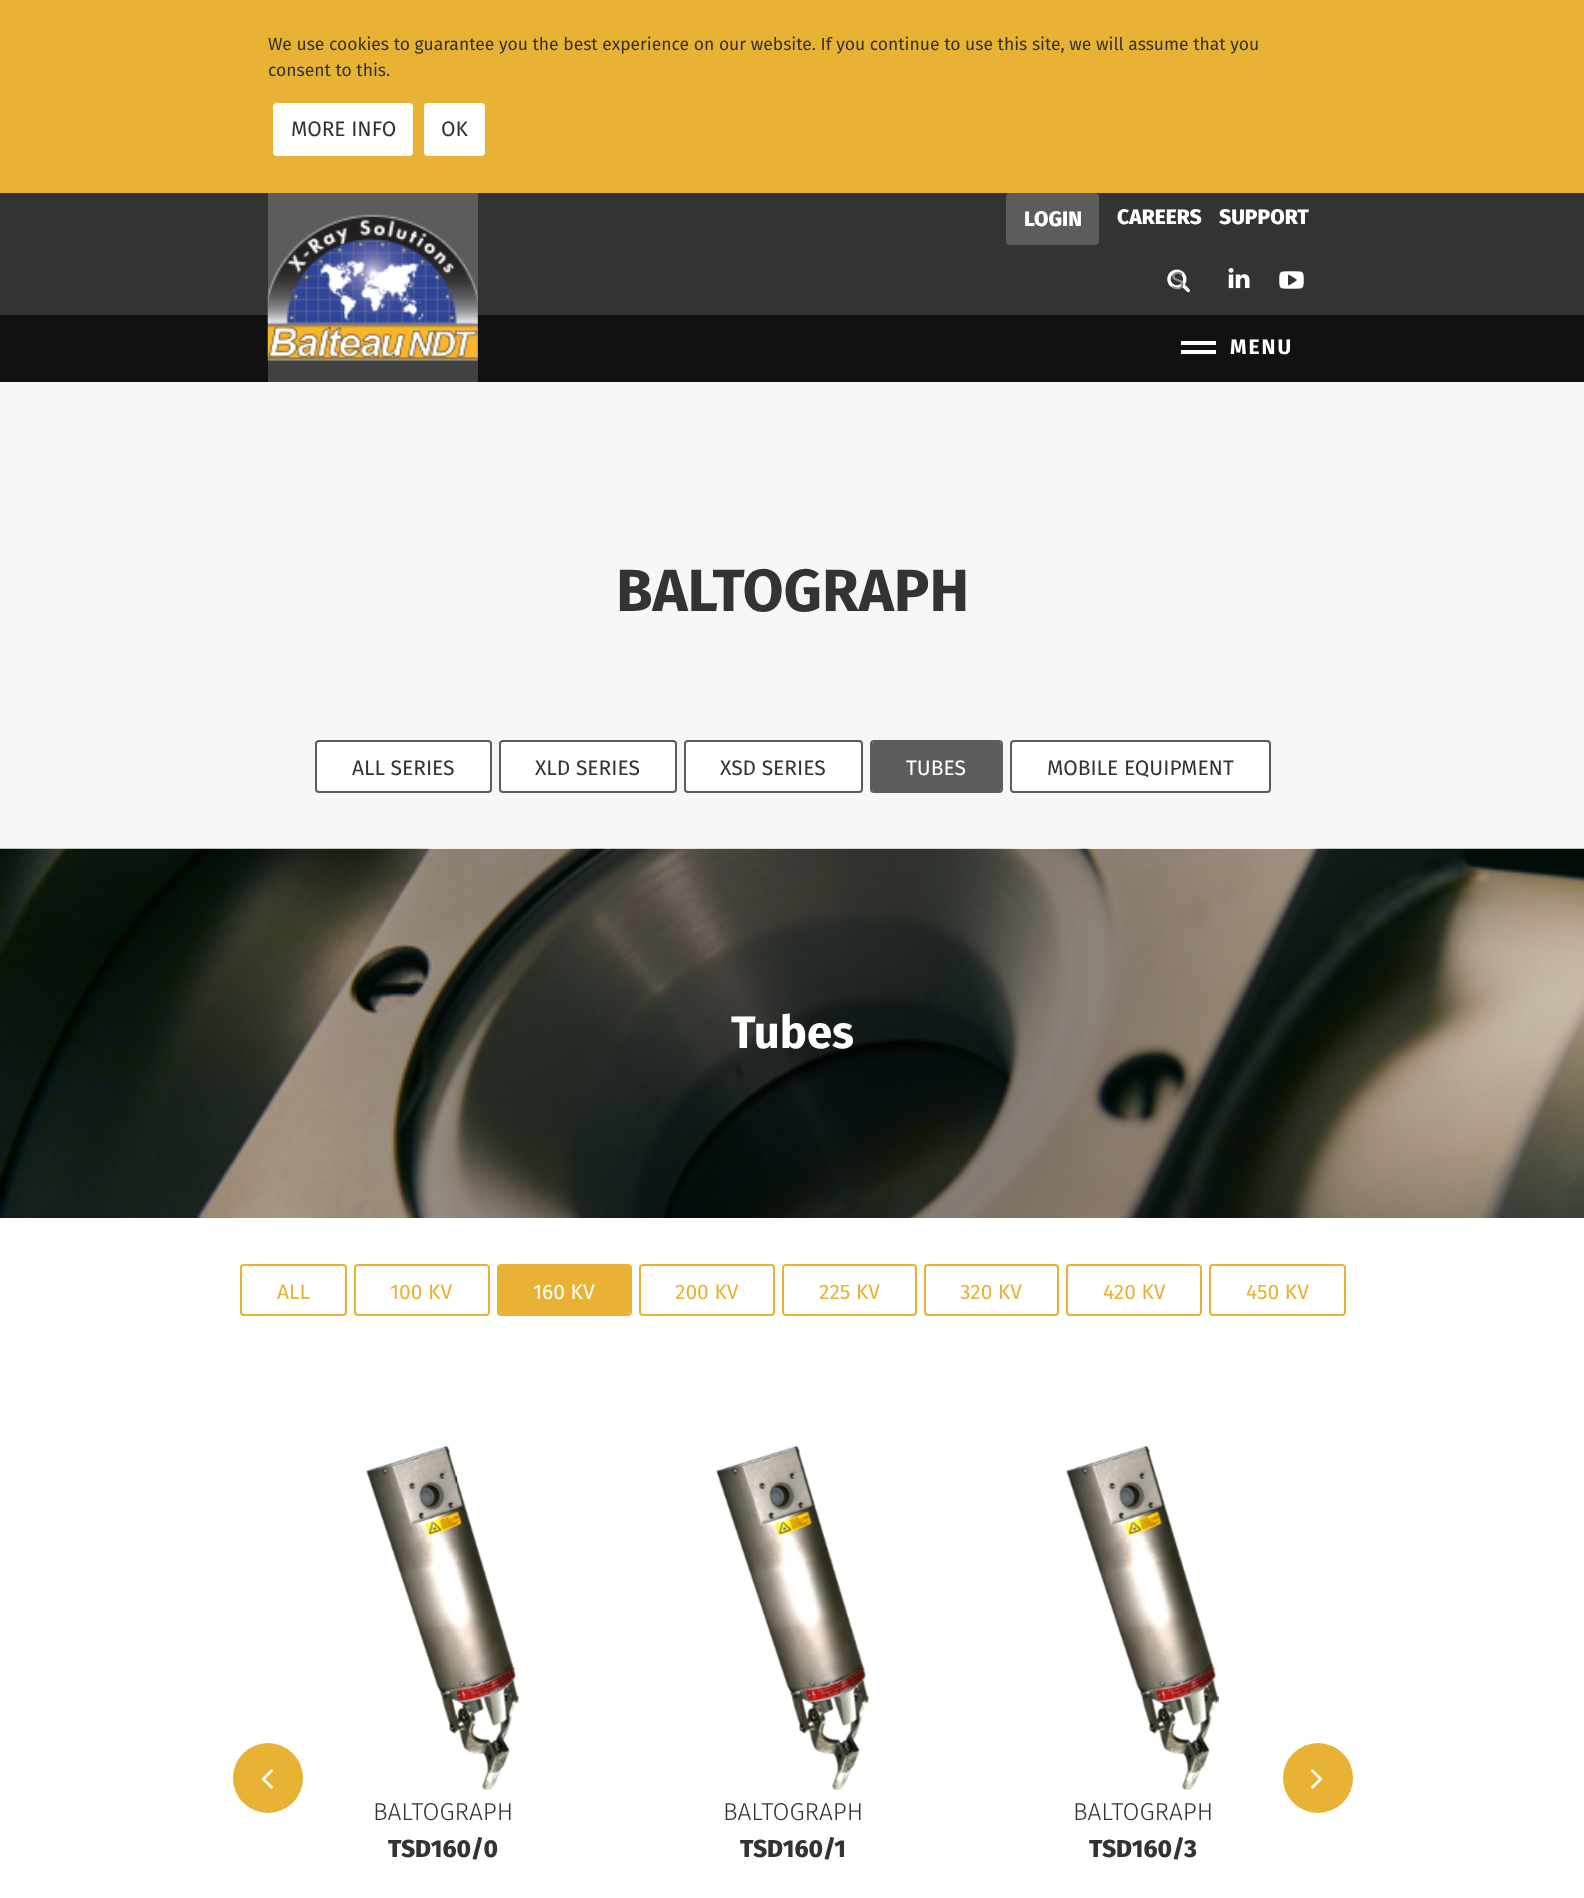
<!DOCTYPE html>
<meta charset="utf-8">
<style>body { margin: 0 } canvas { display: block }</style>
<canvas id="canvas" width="1584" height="1898"></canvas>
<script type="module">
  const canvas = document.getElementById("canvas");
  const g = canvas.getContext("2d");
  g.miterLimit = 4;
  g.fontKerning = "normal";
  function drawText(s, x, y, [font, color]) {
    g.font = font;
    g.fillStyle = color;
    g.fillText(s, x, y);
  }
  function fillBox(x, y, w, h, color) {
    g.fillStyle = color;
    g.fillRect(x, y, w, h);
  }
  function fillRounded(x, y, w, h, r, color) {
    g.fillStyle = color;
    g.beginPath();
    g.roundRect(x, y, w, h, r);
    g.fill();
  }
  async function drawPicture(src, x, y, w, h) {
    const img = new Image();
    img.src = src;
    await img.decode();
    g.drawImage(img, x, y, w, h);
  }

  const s1 = ["17.5px Fira Sans", "#333333"];
  const s2 = ["21px Fira Sans", "#333333"];
  const s3 = ["800 21px Fira Sans", "#FFFFFF"];
  const s4 = ["24.5px Fira Sans", "#929292"];
  const s5 = ["bold 21px Fira Sans", "#FFFFFF"];
  const s6 = ["bold 59.5px Fira Sans", "#333333"];
  const s7 = ["21px Fira Sans", "#FFFFFF"];
  const s8 = ["bold 45.5px Fira Sans", "#FFFFFF"];
  const s9 = ["21px Fira Sans", "#E8B234"];
  const s10 = ["300 24.5px Fira Sans", "#333333"];
  const s11 = ["800 24.5px Fira Sans", "#333333"];

  fillBox(0, 0, 1584, 1898, "#333333");
  fillBox(268, 193, 210, 122, "#5C5C5C");
  fillBox(0, 0, 1584, 193, "#E8B234");
  drawText("We use cookies to guarantee you the best experience on our website. If you continue to use this site, we will assume that you", 268, 50, s1);
  drawText("consent to this.", 268, 76, s1);
  fillRounded(273, 103, 140, 53, 4, "#FFFFFF");
  drawText("MORE INFO", 291, 136, s2);
  fillRounded(424, 103, 61, 53, 4, "#FFFFFF");
  drawText("OK", 441, 136, s2);
  fillBox(0, 315, 1584, 67, "#111111");
  fillBox(268, 315, 210, 67, "#414141");
  await drawPicture("pic1.png", 267, 214, 211, 147);
  fillRounded(1006, 193, 93, 52, 4, "#5C5C5C");
  drawText("LOGIN", 1024, 226, s3);
  drawText("CAREERS", 1117, 224, s3);
  drawText("SUPPORT", 1219, 224, s3);
  await drawPicture("pic2.png", 1167, 269, 23, 24);
  drawText("S", 1171, 289, s4);
  await drawPicture("pic3.png", 1228, 268, 22, 21);
  await drawPicture("pic4.png", 1279, 271, 25, 18);
  fillBox(1181, 341, 35, 4, "#FFFFFF");
  fillBox(1181, 350, 35, 4, "#FFFFFF");
  g.letterSpacing = "2px";
  drawText("MENU", 1230, 354, s5);
  fillBox(0, 382, 1584, 467, "#F8F7F7");
  g.letterSpacing = "0px";
  drawText("BALTOGRAPH", 616, 611, s6);
  g.fillStyle = "#FFFFFF";
  g.beginPath();
  g.roundRect(316, 741, 175, 51, 3);
  g.fill();
  g.strokeStyle = "#5C5C5C";
  g.lineWidth = 2;
  g.stroke();
  drawText("ALL SERIES", 352, 775, s2);
  g.fillStyle = "#FFFFFF";
  g.beginPath();
  g.roundRect(500, 741, 176, 51, 3);
  g.fill();
  g.stroke();
  drawText("XLD SERIES", 535, 775, s2);
  g.fillStyle = "#FFFFFF";
  g.beginPath();
  g.roundRect(685, 741, 177, 51, 3);
  g.fill();
  g.stroke();
  drawText("XSD SERIES", 720, 775, s2);
  g.beginPath();
  g.roundRect(871, 741, 131, 51, 3);
  g.stroke();
  fillRounded(872, 742, 129, 49, 2, "#5C5C5C");
  drawText("TUBES", 906, 775, s7);
  g.beginPath();
  g.roundRect(1011, 741, 259, 51, 3);
  g.fill();
  g.stroke();
  drawText("MOBILE EQUIPMENT", 1047, 775, s2);
  await drawPicture("pic5.png", 0, 848, 1584, 370);
  drawText("Tubes", 731, 1048, s8);
  fillBox(0, 1218, 1584, 680, "#FFFFFF");
  g.beginPath();
  g.roundRect(241, 1265, 105, 50, 3);
  g.strokeStyle = "#E8B234";
  g.stroke();
  drawText("ALL", 277, 1299, s9);
  g.beginPath();
  g.roundRect(355, 1265, 134, 50, 3);
  g.stroke();
  drawText("100 KV", 390, 1299, s9);
  g.beginPath();
  g.roundRect(498, 1265, 133, 50, 3);
  g.stroke();
  fillRounded(499, 1265, 131, 49, 2, "#E8B234");
  drawText("160 KV", 533, 1299, s7);
  g.beginPath();
  g.roundRect(640, 1265, 134, 50, 3);
  g.stroke();
  drawText("200 KV", 675, 1299, s9);
  g.beginPath();
  g.roundRect(783, 1265, 133, 50, 3);
  g.stroke();
  drawText("225 KV", 819, 1299, s9);
  g.beginPath();
  g.roundRect(925, 1265, 133, 50, 3);
  g.stroke();
  drawText("320 KV", 960, 1299, s9);
  g.beginPath();
  g.roundRect(1067, 1265, 134, 50, 3);
  g.stroke();
  drawText("420 KV", 1103, 1299, s9);
  g.beginPath();
  g.roundRect(1210, 1265, 135, 50, 3);
  g.stroke();
  drawText("450 KV", 1246, 1299, s9);
  g.beginPath();
  g.arc(268, 1778, 35, 0, Math.PI * 2);
  g.fill();
  await drawPicture("pic6.png", 261, 1769, 12, 20);
  g.beginPath();
  g.arc(1318, 1778, 35, 0, Math.PI * 2);
  g.fill();
  await drawPicture("pic7.png", 1311, 1769, 12, 20);
  await drawPicture("pic8.png", 366, 1445, 153, 345);
  drawText("BALTOGRAPH", 373, 1820, s10);
  drawText("TSD160/0", 388, 1857, s11);
  await drawPicture("pic9.png", 716, 1445, 153, 345);
  drawText("BALTOGRAPH", 723, 1820, s10);
  drawText("TSD160/1", 740, 1857, s11);
  await drawPicture("pic10.png", 1066, 1445, 153, 345);
  drawText("BALTOGRAPH", 1073, 1820, s10);
  drawText("TSD160/3", 1089, 1857, s11);
</script>
